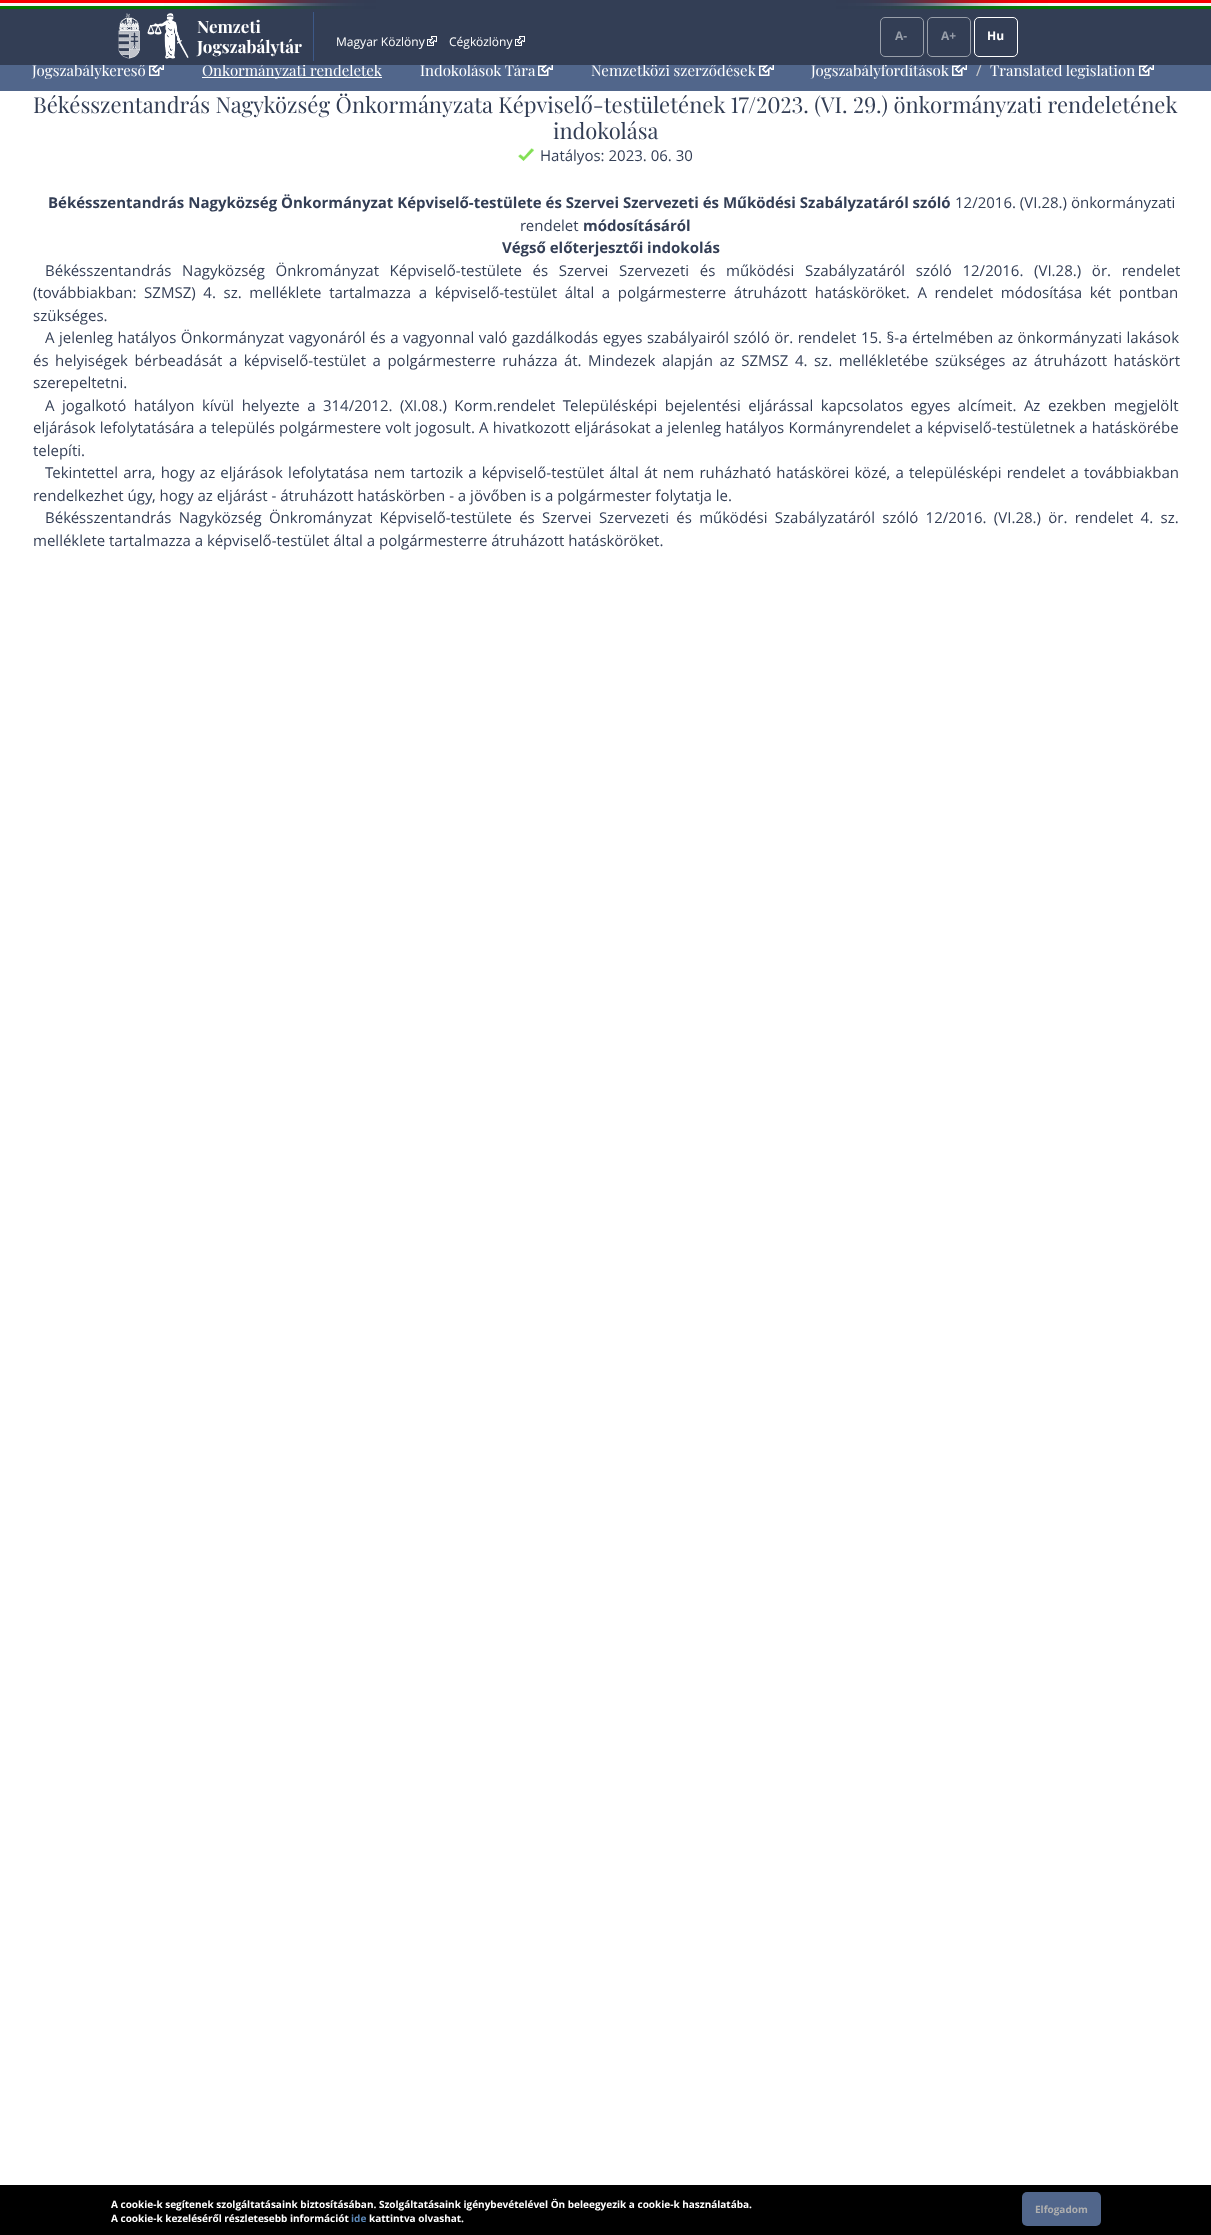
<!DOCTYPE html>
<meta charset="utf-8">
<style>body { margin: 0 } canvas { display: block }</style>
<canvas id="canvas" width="1211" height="2235"></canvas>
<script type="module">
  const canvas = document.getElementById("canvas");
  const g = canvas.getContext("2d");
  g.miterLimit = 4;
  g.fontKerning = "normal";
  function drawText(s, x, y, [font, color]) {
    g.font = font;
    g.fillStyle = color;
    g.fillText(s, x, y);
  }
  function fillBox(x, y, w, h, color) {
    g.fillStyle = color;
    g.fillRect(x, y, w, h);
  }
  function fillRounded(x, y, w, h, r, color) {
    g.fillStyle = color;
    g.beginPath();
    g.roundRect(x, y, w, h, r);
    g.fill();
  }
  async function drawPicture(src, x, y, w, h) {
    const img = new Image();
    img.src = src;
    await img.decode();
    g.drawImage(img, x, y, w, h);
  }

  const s1 = ["15px Playfair Display", "#FFFFFF"];
  const s2 = ["bold 17px Playfair Display", "#FFFFFF"];
  const s3 = ["12px Open Sans", "#FFFFFF"];
  const s4 = ["bold 12px Open Sans", "#999FAA"];
  const s5 = ["bold 12px Open Sans", "#FFFFFF"];
  const s6 = ["15px Open Sans", "#CCCCCC"];
  const s7 = ["22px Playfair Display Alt", "#333E55"];
  const s8 = ["22px Playfair Display", "#333E55"];
  const s9 = ["15px Open Sans", "#333E55"];
  const s10 = ["bold 15px Open Sans", "#333E55"];
  const s11 = ["bold 10px Open Sans", "#FFFFFF"];
  const s12 = ["bold 10px Open Sans", "#5D89B8"];
  const s13 = ["bold 10px Open Sans", "#AFAFAF"];

  fillBox(0, 0, 1211, 2235, "#FFFFFF");
  fillBox(0, 65, 1211, 26, "#51668B");
  drawText("Jogszabálykereső", 32, 76, s1);
  fillBox(202, 77, 180, 1, "#FFFFFF");
  drawText("Önkormányzati rendeletek", 202, 76, s1);
  drawText("Indokolások Tára", 420, 76, s1);
  drawText("Nemzetközi szerződések", 591, 76, s1);
  drawText("Jogszabályfordítások", 811, 76, s1);
  drawText("Translated legislation", 990, 76, s1);
  fillBox(0, 9, 1211, 56, "#333E55");
  await drawPicture("pic1.png", 0, 0, 1211, 9);
  fillBox(111, 0, 990, 9, "#333E55");
  await drawPicture("pic2.png", 111, 0, 990, 9);
  await drawPicture("pic3.png", 118, 13, 71, 46);
  fillBox(313, 12, 1, 49, "#3D5988");
  drawText("Nemzeti", 197, 33, s2);
  drawText("Jogszabálytár", 197, 53, s2);
  drawText("Magyar Közlöny", 336, 46, s3);
  await drawPicture("pic4.png", 427, 36, 10, 10);
  drawText("Cégközlöny", 449, 46, s3);
  await drawPicture("pic4.png", 515, 36, 10, 10);
  g.beginPath();
  g.roundRect(880.5, 17.5, 43, 39, 4.5);
  g.strokeStyle = "#999FAA";
  g.stroke();
  drawText("A-", 895, 40, s4);
  g.beginPath();
  g.roundRect(927.5, 17.5, 43, 39, 4.5);
  g.stroke();
  drawText("A+", 941, 40, s4);
  g.beginPath();
  g.roundRect(974.5, 17.5, 43, 39, 4.5);
  g.strokeStyle = "#FFFFFF";
  g.stroke();
  drawText("Hu", 987, 40, s5);
  await drawPicture("pic5.png", 149, 65, 15, 11);
  await drawPicture("pic5.png", 538, 65, 15, 11);
  await drawPicture("pic6.png", 759, 65, 15, 11);
  await drawPicture("pic7.png", 952, 65, 15, 11);
  drawText("/", 976, 76, s6);
  await drawPicture("pic5.png", 1139, 65, 15, 11);
  drawText("Békésszentandrás Nagyközség Önkormányzata Képviselő-testületének 17/2023. (VI. 29.) önkormányzati rendeletének", 33, 113, s7);
  drawText("indokolása", 553, 139, s8);
  await drawPicture("pic8.png", 518, 148, 16, 13);
  drawText("Hatályos: 2023. 06. 30", 540, 161, s9);
  drawText("Békésszentandrás Nagyközség Önkormányzat Képviselő-testülete és Szervei Szervezeti és Működési Szabályzatáról szóló", 48, 208, s10);
  drawText("12/2016. (VI.28.) önkormányzati", 955, 208, s9);
  drawText("rendelet", 520, 231, s9);
  drawText("módosításáról", 583, 231, s10);
  drawText("Végső előterjesztői indokolás", 502, 253, s10);
  g.wordSpacing = "6.75px";
  drawText("Békésszentandrás Nagyközség Önkrományzat Képviselő-testülete és Szervei Szervezeti és működési Szabályzatáról szóló 12/2016. (VI.28.) ör. rendelet", 45, 276, s9);
  g.wordSpacing = "3.75px";
  drawText("(továbbiakban: SZMSZ) 4. sz. melléklete tartalmazza a képviselő-testület által a polgármesterre átruházott hatásköröket. A rendelet módosítása két pontban", 33, 298, s9);
  g.wordSpacing = "0px";
  drawText("szükséges.", 33, 321, s9);
  g.wordSpacing = "0.6px";
  drawText("A jelenleg hatályos Önkormányzat vagyonáról és a vagyonnal való gazdálkodás egyes szabályairól szóló ör. rendelet 15. §-a értelmében az önkormányzati lakások", 45, 343, s9);
  g.wordSpacing = "2.6px";
  drawText("és helyiségek bérbeadását a képviselő-testület a polgármesterre ruházza át. Mindezek alapján az SZMSZ 4. sz. mellékletébe szükséges az átruházott hatáskört", 33, 366, s9);
  g.wordSpacing = "0px";
  drawText("szerepeltetni.", 33, 388, s9);
  g.wordSpacing = "3.6px";
  drawText("A jogalkotó hatályon kívül helyezte a 314/2012. (XI.08.) Korm.rendelet Településképi bejelentési eljárással kapcsolatos egyes alcímeit. Az ezekben megjelölt", 45, 411, s9);
  g.wordSpacing = "0.3px";
  drawText("eljárások lefolytatására a település polgármestere volt jogosult. A hivatkozott eljárásokat a jelenleg hatályos Kormányrendelet a képviselő-testületnek a hatáskörébe", 33, 433, s9);
  g.wordSpacing = "0px";
  drawText("telepíti.", 33, 456, s9);
  g.wordSpacing = "1.25px";
  drawText("Tekintettel arra, hogy az eljárások lefolytatása nem tartozik a képviselő-testület által át nem ruházható hatáskörei közé, a településképi rendelet a továbbiakban", 45, 478, s9);
  g.wordSpacing = "0px";
  drawText("rendelkezhet úgy, hogy az eljárást - átruházott hatáskörben - a jövőben is a polgármester folytatja le.", 33, 501, s9);
  g.wordSpacing = "3.4px";
  drawText("Békésszentandrás Nagyközség Önkrományzat Képviselő-testülete és Szervei Szervezeti és működési Szabályzatáról szóló 12/2016. (VI.28.) ör. rendelet 4. sz.", 45, 523, s9);
  g.wordSpacing = "0px";
  drawText("melléklete tartalmazza a képviselő-testület által a polgármesterre átruházott hatásköröket.", 33, 546, s9);
  fillBox(0, 2185, 1211, 50, "#000000");
  drawText("A cookie-k segítenek szolgáltatásaink biztosításában. Szolgáltatásaink igénybevételével Ön beleegyezik a cookie-k használatába.", 111, 2208, s11);
  drawText("A cookie-k kezeléséről részletesebb információt", 111, 2222, s11);
  drawText("ide", 351, 2222, s12);
  drawText("kattintva olvashat.", 369, 2222, s11);
  fillRounded(1022, 2192, 79, 34, 5, "#51668B");
  drawText("Elfogadom", 1035, 2213, s13);
</script>
